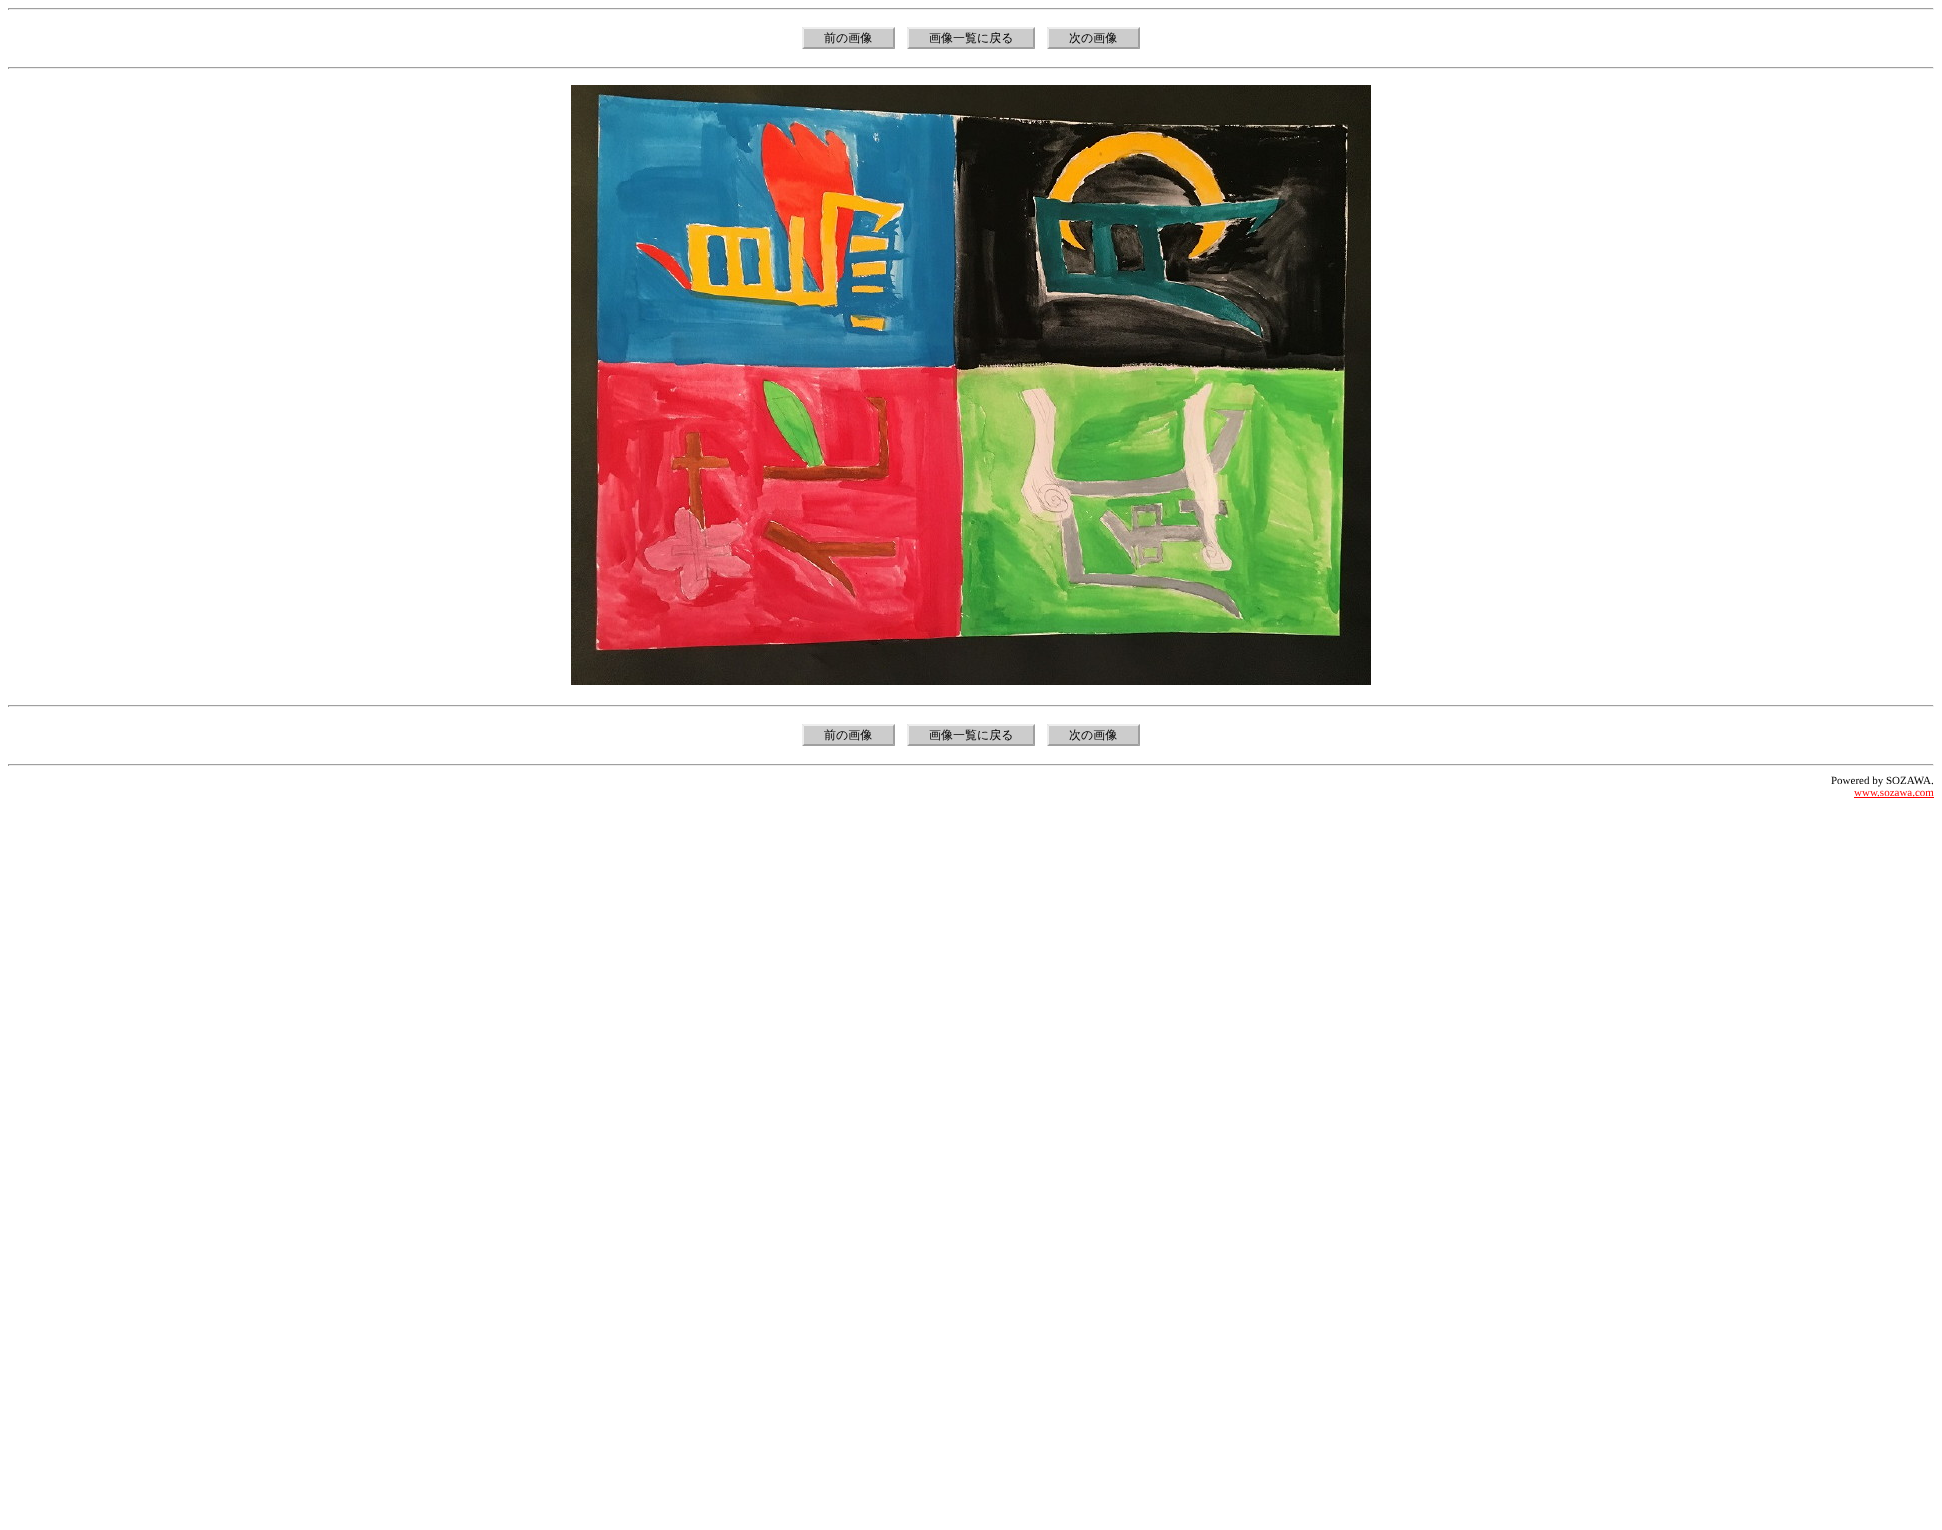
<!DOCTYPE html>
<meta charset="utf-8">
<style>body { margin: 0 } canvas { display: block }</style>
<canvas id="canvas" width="1942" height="1530"></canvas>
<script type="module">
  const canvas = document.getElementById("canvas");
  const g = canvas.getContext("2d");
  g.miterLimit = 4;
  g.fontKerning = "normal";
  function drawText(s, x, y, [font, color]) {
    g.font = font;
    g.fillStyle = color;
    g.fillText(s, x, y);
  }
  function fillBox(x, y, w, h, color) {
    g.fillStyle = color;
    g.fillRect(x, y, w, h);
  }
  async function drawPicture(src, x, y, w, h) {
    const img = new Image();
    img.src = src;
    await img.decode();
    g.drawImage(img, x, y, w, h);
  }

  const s1 = ["500 12px WenQuanYi Zen Hei", "#000000"];
  const s2 = ["11px Liberation Serif", "#000000"];
  const s3 = ["11px Liberation Serif", "#FF0000"];

  fillBox(0, 0, 1942, 1530, "#FFFFFF");
  fillBox(8, 8, 1926, 1, "#9F9F9F");
  fillBox(1933, 8, 1, 2, "#EEEEEE");
  fillBox(8, 9, 1926, 1, "#EEEEEE");
  fillBox(8, 8, 1, 2, "#9F9F9F");
  fillBox(802, 27, 93, 22, "#CCCCCC");
  drawText("前の画像", 824, 42, s1);
  g.fillStyle = "#EEEEEE";
  g.beginPath();
  g.moveTo(802, 27);
  g.lineTo(895, 27);
  g.lineTo(893, 29);
  g.lineTo(804, 29);
  g.closePath();
  g.fill();
  g.fillStyle = "#9F9F9F";
  g.beginPath();
  g.moveTo(895, 27);
  g.lineTo(895, 49);
  g.lineTo(893, 47);
  g.lineTo(893, 29);
  g.closePath();
  g.fill();
  g.beginPath();
  g.moveTo(895, 49);
  g.lineTo(802, 49);
  g.lineTo(804, 47);
  g.lineTo(893, 47);
  g.closePath();
  g.fill();
  g.fillStyle = "#EEEEEE";
  g.beginPath();
  g.moveTo(802, 49);
  g.lineTo(802, 27);
  g.lineTo(804, 29);
  g.lineTo(804, 47);
  g.closePath();
  g.fill();
  fillBox(907, 27, 128, 22, "#CCCCCC");
  drawText("画像一覧に戻る", 929, 42, s1);
  g.fillStyle = "#EEEEEE";
  g.beginPath();
  g.moveTo(907, 27);
  g.lineTo(1035, 27);
  g.lineTo(1033, 29);
  g.lineTo(909, 29);
  g.closePath();
  g.fill();
  g.fillStyle = "#9F9F9F";
  g.beginPath();
  g.moveTo(1035, 27);
  g.lineTo(1035, 49);
  g.lineTo(1033, 47);
  g.lineTo(1033, 29);
  g.closePath();
  g.fill();
  g.beginPath();
  g.moveTo(1035, 49);
  g.lineTo(907, 49);
  g.lineTo(909, 47);
  g.lineTo(1033, 47);
  g.closePath();
  g.fill();
  g.fillStyle = "#EEEEEE";
  g.beginPath();
  g.moveTo(907, 49);
  g.lineTo(907, 27);
  g.lineTo(909, 29);
  g.lineTo(909, 47);
  g.closePath();
  g.fill();
  fillBox(1047, 27, 93, 22, "#CCCCCC");
  drawText("次の画像", 1069, 42, s1);
  g.fillStyle = "#EEEEEE";
  g.beginPath();
  g.moveTo(1047, 27);
  g.lineTo(1140, 27);
  g.lineTo(1138, 29);
  g.lineTo(1049, 29);
  g.closePath();
  g.fill();
  g.fillStyle = "#9F9F9F";
  g.beginPath();
  g.moveTo(1140, 27);
  g.lineTo(1140, 49);
  g.lineTo(1138, 47);
  g.lineTo(1138, 29);
  g.closePath();
  g.fill();
  g.beginPath();
  g.moveTo(1140, 49);
  g.lineTo(1047, 49);
  g.lineTo(1049, 47);
  g.lineTo(1138, 47);
  g.closePath();
  g.fill();
  g.fillStyle = "#EEEEEE";
  g.beginPath();
  g.moveTo(1047, 49);
  g.lineTo(1047, 27);
  g.lineTo(1049, 29);
  g.lineTo(1049, 47);
  g.closePath();
  g.fill();
  fillBox(8, 67, 1926, 1, "#9F9F9F");
  fillBox(1933, 67, 1, 2, "#EEEEEE");
  fillBox(8, 68, 1926, 1, "#EEEEEE");
  fillBox(8, 67, 1, 2, "#9F9F9F");
  await drawPicture("pic1.png", 571, 85, 800, 600);
  fillBox(8, 705, 1926, 1, "#9F9F9F");
  fillBox(1933, 705, 1, 2, "#EEEEEE");
  fillBox(8, 706, 1926, 1, "#EEEEEE");
  fillBox(8, 705, 1, 2, "#9F9F9F");
  fillBox(802, 724, 93, 22, "#CCCCCC");
  drawText("前の画像", 824, 739, s1);
  g.fillStyle = "#EEEEEE";
  g.beginPath();
  g.moveTo(802, 724);
  g.lineTo(895, 724);
  g.lineTo(893, 726);
  g.lineTo(804, 726);
  g.closePath();
  g.fill();
  g.fillStyle = "#9F9F9F";
  g.beginPath();
  g.moveTo(895, 724);
  g.lineTo(895, 746);
  g.lineTo(893, 744);
  g.lineTo(893, 726);
  g.closePath();
  g.fill();
  g.beginPath();
  g.moveTo(895, 746);
  g.lineTo(802, 746);
  g.lineTo(804, 744);
  g.lineTo(893, 744);
  g.closePath();
  g.fill();
  g.fillStyle = "#EEEEEE";
  g.beginPath();
  g.moveTo(802, 746);
  g.lineTo(802, 724);
  g.lineTo(804, 726);
  g.lineTo(804, 744);
  g.closePath();
  g.fill();
  fillBox(907, 724, 128, 22, "#CCCCCC");
  drawText("画像一覧に戻る", 929, 739, s1);
  g.fillStyle = "#EEEEEE";
  g.beginPath();
  g.moveTo(907, 724);
  g.lineTo(1035, 724);
  g.lineTo(1033, 726);
  g.lineTo(909, 726);
  g.closePath();
  g.fill();
  g.fillStyle = "#9F9F9F";
  g.beginPath();
  g.moveTo(1035, 724);
  g.lineTo(1035, 746);
  g.lineTo(1033, 744);
  g.lineTo(1033, 726);
  g.closePath();
  g.fill();
  g.beginPath();
  g.moveTo(1035, 746);
  g.lineTo(907, 746);
  g.lineTo(909, 744);
  g.lineTo(1033, 744);
  g.closePath();
  g.fill();
  g.fillStyle = "#EEEEEE";
  g.beginPath();
  g.moveTo(907, 746);
  g.lineTo(907, 724);
  g.lineTo(909, 726);
  g.lineTo(909, 744);
  g.closePath();
  g.fill();
  fillBox(1047, 724, 93, 22, "#CCCCCC");
  drawText("次の画像", 1069, 739, s1);
  g.fillStyle = "#EEEEEE";
  g.beginPath();
  g.moveTo(1047, 724);
  g.lineTo(1140, 724);
  g.lineTo(1138, 726);
  g.lineTo(1049, 726);
  g.closePath();
  g.fill();
  g.fillStyle = "#9F9F9F";
  g.beginPath();
  g.moveTo(1140, 724);
  g.lineTo(1140, 746);
  g.lineTo(1138, 744);
  g.lineTo(1138, 726);
  g.closePath();
  g.fill();
  g.beginPath();
  g.moveTo(1140, 746);
  g.lineTo(1047, 746);
  g.lineTo(1049, 744);
  g.lineTo(1138, 744);
  g.closePath();
  g.fill();
  g.fillStyle = "#EEEEEE";
  g.beginPath();
  g.moveTo(1047, 746);
  g.lineTo(1047, 724);
  g.lineTo(1049, 726);
  g.lineTo(1049, 744);
  g.closePath();
  g.fill();
  fillBox(8, 764, 1926, 1, "#9F9F9F");
  fillBox(1933, 764, 1, 2, "#EEEEEE");
  fillBox(8, 765, 1926, 1, "#EEEEEE");
  fillBox(8, 764, 1, 2, "#9F9F9F");
  drawText("Powered by SOZAWA.", 1831, 784, s2);
  drawText("www.sozawa.com", 1854, 796, s3);
  fillBox(1854, 797, 80, 1, "#FF0000");
</script>
